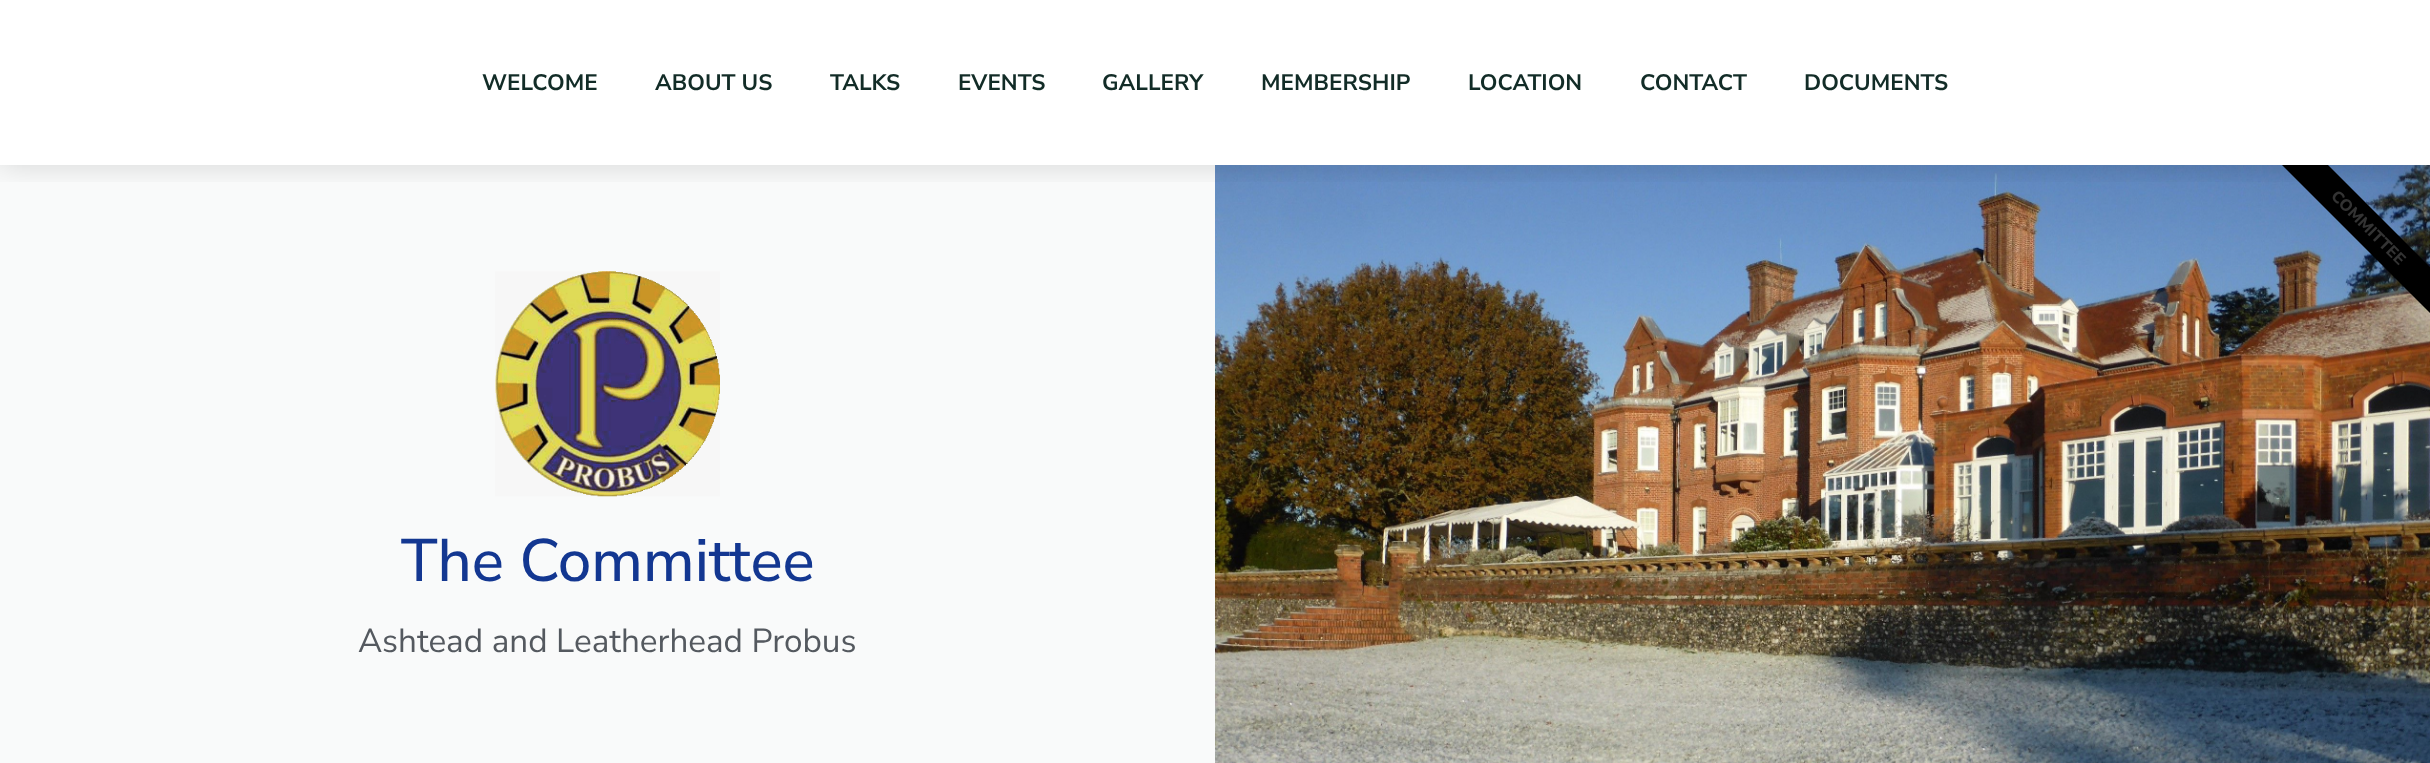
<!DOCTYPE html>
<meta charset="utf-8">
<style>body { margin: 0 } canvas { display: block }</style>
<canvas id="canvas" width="2430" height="763"></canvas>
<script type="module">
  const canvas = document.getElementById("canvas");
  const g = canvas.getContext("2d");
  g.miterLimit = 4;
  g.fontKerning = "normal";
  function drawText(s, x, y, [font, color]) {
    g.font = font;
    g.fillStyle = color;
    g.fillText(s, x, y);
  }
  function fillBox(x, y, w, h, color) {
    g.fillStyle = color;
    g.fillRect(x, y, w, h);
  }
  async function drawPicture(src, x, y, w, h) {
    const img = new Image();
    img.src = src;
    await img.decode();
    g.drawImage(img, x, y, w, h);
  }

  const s1 = ["bold 22.5px Nunito Sans", "#122C27"];
  const s2 = ["500 60px Nunito Sans", "#133791"];
  const s3 = ["33.25px Nunito Sans", "#54595F"];

  fillBox(0, 0, 2430, 763, "#FFFFFF");
  await drawPicture("pic1.png", 1215, 165, 1215, 598);
  g.fillStyle = "#000000";
  g.beginPath();
  g.moveTo(2430, 313);
  g.lineTo(2282, 165);
  g.lineTo(2328, 165);
  g.lineTo(2430, 267);
  g.closePath();
  g.fill();
  fillBox(0, 165, 1215, 598, "#F9FAFA");
  g.save();
  g.beginPath();
  g.rect(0, 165, 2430, 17);
  g.clip();
  g.fillStyle = "rgba(0, 0, 0, 0.15)";
  g.filter = "blur(15px)";
  g.beginPath();
  g.rect(0, 0, 2430, 165);
  g.fill();
  g.filter = "none";
  g.restore();
  drawText("WELCOME", 482, 90, s1);
  drawText("ABOUT US", 655, 90, s1);
  drawText("TALKS", 830, 90, s1);
  drawText("EVENTS", 958, 90, s1);
  drawText("GALLERY", 1102, 90, s1);
  drawText("MEMBERSHIP", 1261, 90, s1);
  drawText("LOCATION", 1468, 90, s1);
  drawText("CONTACT", 1640, 90, s1);
  drawText("DOCUMENTS", 1804, 90, s1);
  g.font = "800 16.25px Nunito Sans";
  g.fillStyle = "#333333";
  g.save();
  g.translate(2330, 197);
  g.rotate(45 * Math.PI / 180);
  g.fillText("COMMITTEE", 0, 0);
  g.restore();
  await drawPicture("pic2.png", 495, 271, 225, 226);
  drawText("The Committee", 401, 581, s2);
  drawText("Ashtead and Leatherhead Probus", 358, 652, s3);
</script>
